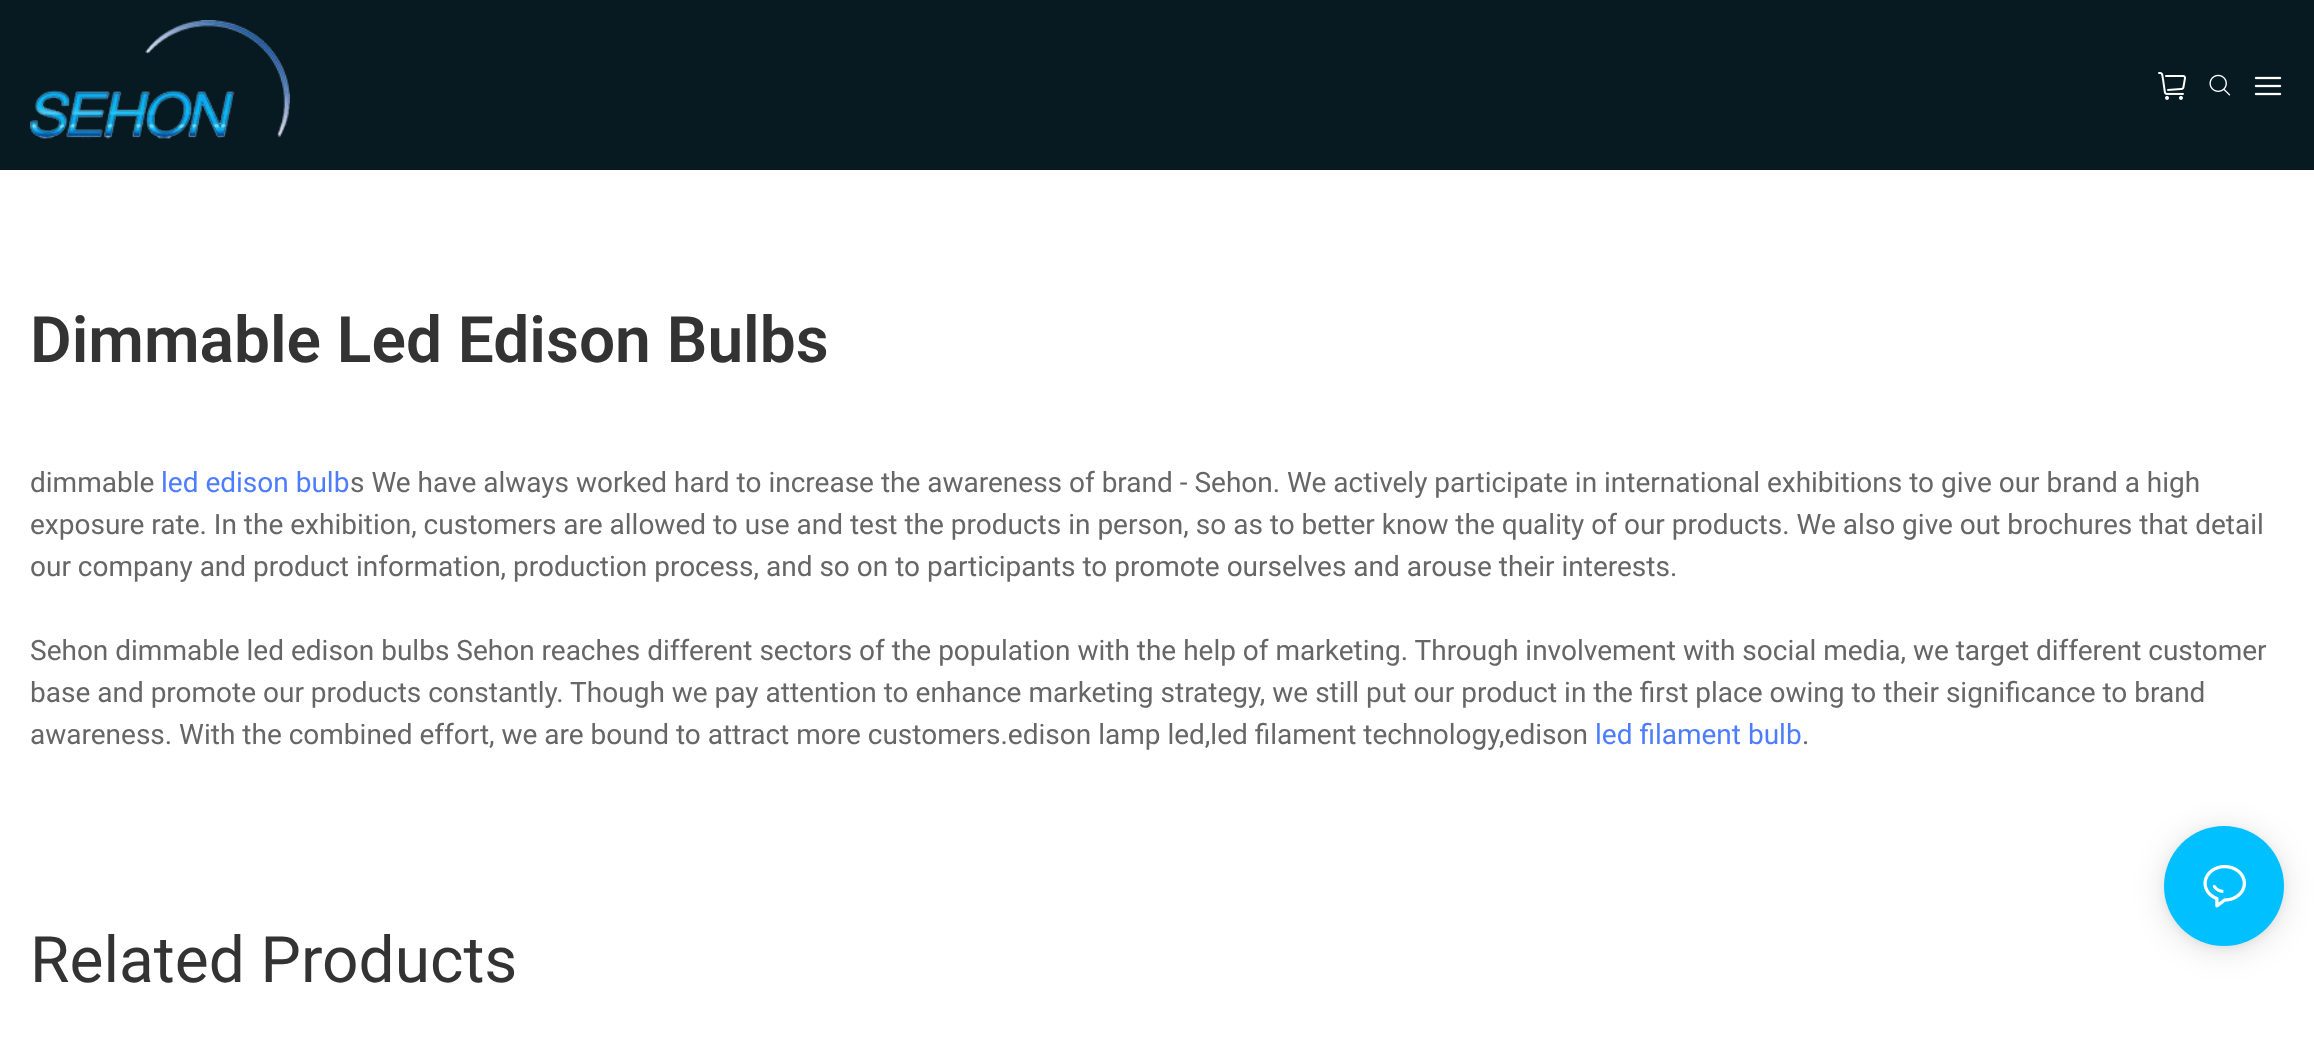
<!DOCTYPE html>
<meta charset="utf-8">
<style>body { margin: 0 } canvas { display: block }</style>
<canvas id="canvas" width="2314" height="1052"></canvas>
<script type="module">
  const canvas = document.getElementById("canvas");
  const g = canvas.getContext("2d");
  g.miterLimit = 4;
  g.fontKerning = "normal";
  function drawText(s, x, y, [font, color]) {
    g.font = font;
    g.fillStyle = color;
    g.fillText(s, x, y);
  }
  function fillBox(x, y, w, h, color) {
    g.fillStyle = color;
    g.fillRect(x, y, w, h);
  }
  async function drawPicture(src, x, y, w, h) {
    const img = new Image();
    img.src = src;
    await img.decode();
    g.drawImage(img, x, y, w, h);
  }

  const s1 = ["600 64px Roboto", "#333333"];
  const s2 = ["28px Roboto", "#666666"];
  const s3 = ["28px Roboto", "#4D7CFE"];
  const s4 = ["64px Roboto", "#333333"];

  fillBox(0, 0, 2314, 1052, "#FFFFFF");
  fillBox(0, 0, 2314, 170, "#071A22");
  await drawPicture("pic1.png", 30, 20, 260, 120);
  await drawPicture("pic2.png", 2158, 72, 28, 28);
  await drawPicture("pic3.png", 2209, 74, 22, 22);
  await drawPicture("pic4.png", 2254, 76, 28, 20);
  drawText("Dimmable Led Edison Bulbs", 30, 362, s1);
  drawText("dimmable", 30, 492, s2);
  drawText("led edison bulb", 161, 492, s3);
  drawText("s We have always worked hard to increase the awareness of brand - Sehon. We actively participate in international exhibitions to give our brand a high", 350, 492, s2);
  drawText("exposure rate. In the exhibition, customers are allowed to use and test the products in person, so as to better know the quality of our products. We also give out brochures that detail", 30, 534, s2);
  drawText("our company and product information, production process, and so on to participants to promote ourselves and arouse their interests.", 30, 576, s2);
  drawText("Sehon dimmable led edison bulbs Sehon reaches different sectors of the population with the help of marketing. Through involvement with social media, we target different customer", 30, 660, s2);
  drawText("base and promote our products constantly. Though we pay attention to enhance marketing strategy, we still put our product in the first place owing to their significance to brand", 30, 702, s2);
  drawText("awareness. With the combined effort, we are bound to attract more customers.edison lamp led,led filament technology,edison", 30, 744, s2);
  drawText("led filament bulb", 1595, 744, s3);
  drawText(".", 1802, 744, s2);
  drawText("Related Products", 30, 982, s4);
  g.fillStyle = "rgba(0, 0, 0, 0.12)";
  g.filter = "blur(16px)";
  g.beginPath();
  g.roundRect(2164, 830, 120, 120, 60);
  g.fill();
  g.filter = "none";
  g.fillStyle = "rgba(0, 0, 0, 0.06)";
  g.filter = "blur(4px)";
  g.beginPath();
  g.roundRect(2164, 828, 120, 120, 60);
  g.fill();
  g.filter = "none";
  g.fillStyle = "#00C0FF";
  g.beginPath();
  g.arc(2224, 886, 60, 0, Math.PI * 2);
  g.fill();
  await drawPicture("pic5.png", 2203, 865, 43, 43);
</script>
